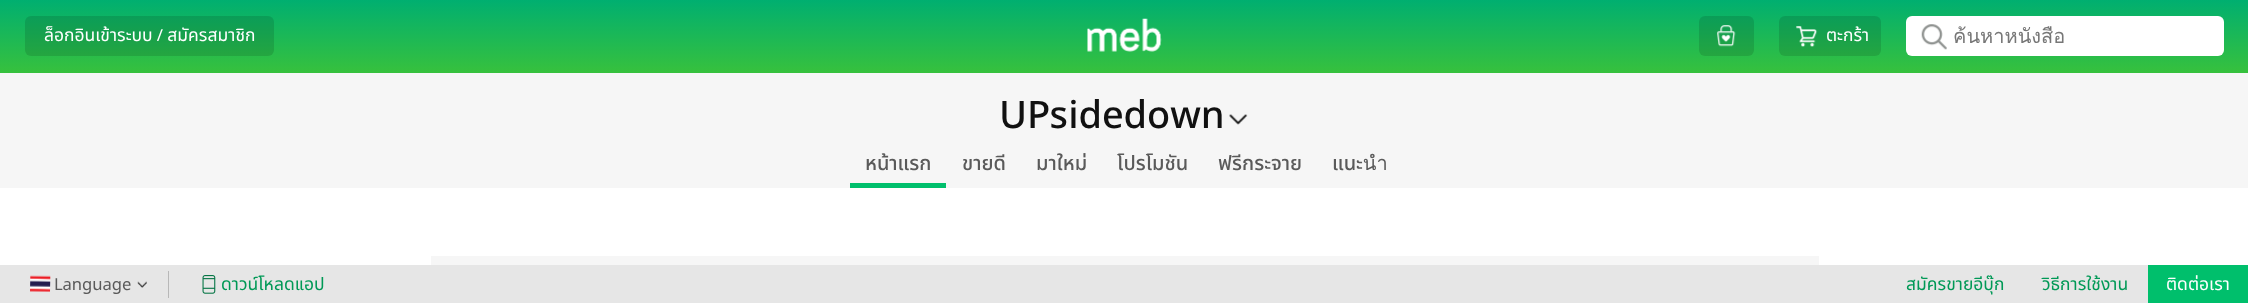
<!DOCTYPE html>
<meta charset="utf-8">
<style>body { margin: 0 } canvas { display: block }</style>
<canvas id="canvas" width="2248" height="303"></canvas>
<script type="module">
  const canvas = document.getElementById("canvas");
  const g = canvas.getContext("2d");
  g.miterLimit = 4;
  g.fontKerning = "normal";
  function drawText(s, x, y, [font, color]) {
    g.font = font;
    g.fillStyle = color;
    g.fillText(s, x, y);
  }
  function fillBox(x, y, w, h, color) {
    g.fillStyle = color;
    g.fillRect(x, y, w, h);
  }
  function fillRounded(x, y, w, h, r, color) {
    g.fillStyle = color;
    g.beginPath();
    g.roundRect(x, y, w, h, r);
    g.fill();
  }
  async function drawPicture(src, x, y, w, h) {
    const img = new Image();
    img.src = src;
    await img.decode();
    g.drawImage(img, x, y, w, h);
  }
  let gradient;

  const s1 = ["17.5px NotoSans", "#FFFFFF"];
  const s2 = ["20px Loma", "#777777"];
  const s3 = ["500 40px NotoSans", "#111111"];
  const s4 = ["500 20px NotoSans", "#5A5A5A"];
  const s5 = ["17.5px NotoSans", "#5A5A5A"];
  const s6 = ["17.5px NotoSans", "#009956"];

  fillBox(0, 0, 2248, 303, "#FFFFFF");
  gradient = g.createLinearGradient(1124, 0, 1124, 73);
  gradient.addColorStop(0, "#00AF70");
  gradient.addColorStop(1, "#37C13D");
  g.fillStyle = gradient;
  g.fillRect(0, 0, 2248, 73);
  fillRounded(25, 16, 249, 40, 6, "rgba(0, 0, 0, 0.12)");
  drawText("ล็อกอินเข้าระบบ / สมัครสมาชิก", 44, 41, s1);
  await drawPicture("pic1.png", 1087, 18, 75, 34);
  fillRounded(1699, 16, 55, 40, 6, "rgba(0, 0, 0, 0.12)");
  await drawPicture("pic2.png", 1717, 25, 19, 22);
  fillRounded(1779, 16, 102, 40, 6, "rgba(0, 0, 0, 0.12)");
  await drawPicture("pic3.png", 1796, 26, 22, 21);
  drawText("ตะกร้า", 1826, 41, s1);
  fillRounded(1906, 16, 318, 40, 6, "#FFFFFF");
  await drawPicture("pic4.png", 1921, 24, 26, 26);
  g.save();
  g.beginPath();
  g.rect(1953, 20, 258, 31);
  g.clip();
  drawText("ค้นหาหนังสือ", 1953, 43, s2);
  g.restore();
  fillBox(0, 73, 2248, 115, "#F6F6F6");
  drawText("UPsidedown", 999, 128, s3);
  await drawPicture("pic5.png", 1229, 114, 19, 11);
  fillBox(850, 183, 96, 5, "#00BF6C");
  drawText("หน้าแรก", 865, 170, s4);
  drawText("ขายดี", 962, 170, s4);
  drawText("มาใหม่", 1036, 170, s4);
  drawText("โปรโมชัน", 1117, 170, s4);
  drawText("ฟรีกระจาย", 1218, 170, s4);
  drawText("แนะนำ", 1332, 170, s4);
  fillBox(431, 256, 1388, 9, "#F6F6F6");
  fillBox(0, 265, 2148, 38, "#E6E6E6");
  fillBox(168, 271, 1, 27, "#B8B8B8");
  await drawPicture("pic6.png", 30, 275, 21, 17);
  drawText("Language", 54, 290, s5);
  await drawPicture("pic7.png", 137, 281, 10, 7);
  await drawPicture("pic8.png", 202, 275, 14, 19);
  drawText("ดาวน์โหลดแอป", 221, 290, s6);
  drawText("สมัครขายอีบุ๊ก", 1906, 290, s6);
  drawText("วิธีการใช้งาน", 2042, 290, s6);
  fillBox(2148, 265, 100, 38, "#00BF6C");
  drawText("ติดต่อเรา", 2166, 290, s1);
</script>
